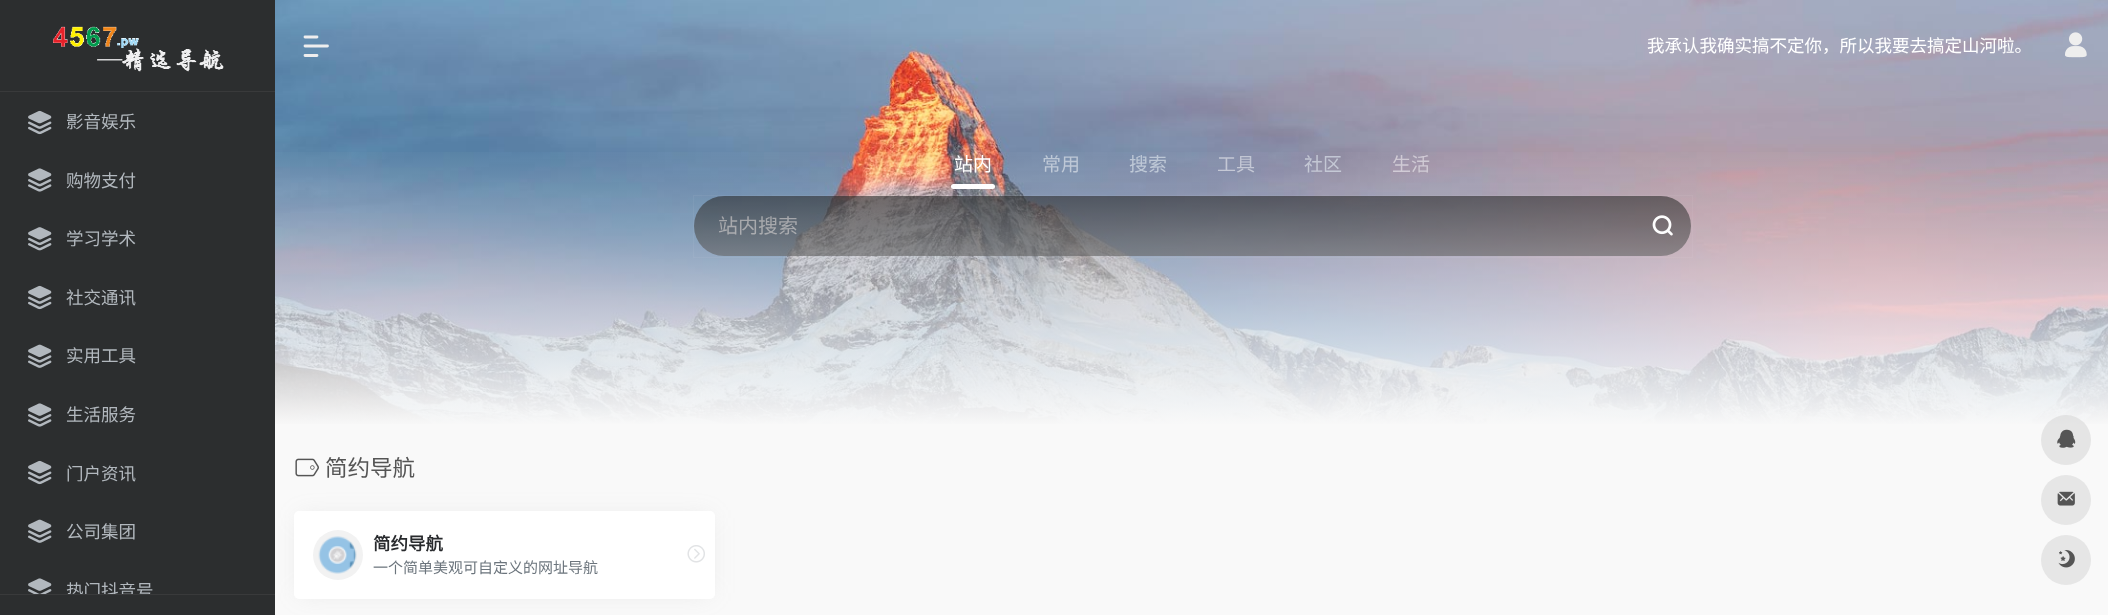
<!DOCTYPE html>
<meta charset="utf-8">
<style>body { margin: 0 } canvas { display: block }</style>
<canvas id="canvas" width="2108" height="615"></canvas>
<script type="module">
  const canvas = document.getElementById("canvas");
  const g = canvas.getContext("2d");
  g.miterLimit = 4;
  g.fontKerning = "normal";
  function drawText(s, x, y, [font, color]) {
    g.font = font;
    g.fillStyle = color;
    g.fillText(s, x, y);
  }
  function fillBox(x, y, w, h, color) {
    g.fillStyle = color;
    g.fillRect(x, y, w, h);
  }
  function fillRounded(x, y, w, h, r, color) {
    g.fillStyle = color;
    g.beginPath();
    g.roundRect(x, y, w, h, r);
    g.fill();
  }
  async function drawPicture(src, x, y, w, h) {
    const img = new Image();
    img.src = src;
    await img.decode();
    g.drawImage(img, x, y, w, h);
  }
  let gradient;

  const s1 = ["17.5px Noto Sans CJK SC", "#B2B8BE"];
  const s2 = ["17.5px Noto Sans CJK SC", "#FFFFFF"];
  const s3 = ["19px Noto Sans CJK SC", "#FFFFFF"];
  const s4 = ["19px Noto Sans CJK SC", "#BAC5D4"];
  const s5 = ["19px Noto Sans CJK SC", "#C0C4D2"];
  const s6 = ["19px Noto Sans CJK SC", "#CDC7D2"];
  const s7 = ["20px Noto Sans CJK SC", "#888A8F"];
  const s8 = ["22.5px Noto Sans CJK SC", "#555555"];
  const s9 = ["bold 17.5px Noto Sans CJK SC", "#282A2D"];
  const s10 = ["15px Noto Sans CJK SC", "#6C757D"];

  fillBox(0, 0, 2108, 615, "#F9F9F9");
  g.fillStyle = "rgba(158, 158, 158, 0.2)";
  g.filter = "blur(12.5px)";
  g.beginPath();
  g.rect(300, 518, 409, 75);
  g.fill();
  g.filter = "none";
  fillBox(0, 0, 275, 615, "#2C2E2F");
  fillBox(0, 91, 275, 1, "#393A3B");
  await drawPicture("pic1.png", 53, 26, 171, 46);
  await drawPicture("pic2.png", 28, 110, 24, 25);
  drawText("影音娱乐", 66, 128, s1);
  await drawPicture("pic3.png", 28, 168, 24, 24);
  drawText("购物支付", 66, 187, s1);
  await drawPicture("pic4.png", 28, 227, 24, 24);
  drawText("学习学术", 66, 245, s1);
  await drawPicture("pic2.png", 28, 285, 24, 25);
  drawText("社交通讯", 66, 304, s1);
  await drawPicture("pic5.png", 28, 344, 24, 24);
  drawText("实用工具", 66, 362, s1);
  await drawPicture("pic3.png", 28, 403, 24, 24);
  drawText("生活服务", 66, 421, s1);
  await drawPicture("pic2.png", 28, 460, 24, 25);
  drawText("门户资讯", 66, 480, s1);
  await drawPicture("pic5.png", 28, 519, 24, 24);
  drawText("公司集团", 66, 538, s1);
  await drawPicture("pic6.png", 28, 578, 24, 16);
  g.save();
  g.beginPath();
  g.rect(10, 563, 255, 31);
  g.clip();
  drawText("热门抖音号", 66, 597, s1);
  g.restore();
  fillBox(0, 594, 275, 1, "#393A3B");
  await drawPicture("pic8.png", 275, 0, 1833, 424);
  g.beginPath();
  g.moveTo(305, 37);
  g.lineTo(317, 37);
  g.moveTo(305, 46);
  g.lineTo(327.5, 46);
  g.moveTo(305, 55.5);
  g.lineTo(317, 55.5);
  g.strokeStyle = "#EEEEEE";
  g.lineWidth = 2.8;
  g.lineCap = "round";
  g.lineJoin = "round";
  g.stroke();
  drawText("我承认我确实搞不定你，所以我要去搞定山河啦。", 1647, 52, s2);
  await drawPicture("pic7.png", 2065, 32, 22, 26);
  drawText("站内", 954, 171, s3);
  drawText("常用", 1042, 171, s4);
  drawText("搜索", 1129, 171, s4);
  drawText("工具", 1217, 171, s5);
  drawText("社区", 1304, 171, s5);
  drawText("生活", 1392, 171, s6);
  fillRounded(951, 184, 44, 5, 2.5, "#FFFFFF");
  fillRounded(694, 196, 997, 60, 30, "rgba(0, 0, 0, 0.6)");
  g.strokeStyle = "rgba(255, 255, 255, 0.05)";
  g.lineWidth = 1;
  g.lineJoin = "miter";
  g.strokeRect(693.5, 195.5, 999, 62);
  drawText("站内搜索", 718, 233, s7);
  await drawPicture("pic9.png", 1652, 215, 21, 21);
  gradient = g.createLinearGradient(1192, 426, 1192, 76);
  gradient.addColorStop(0, "#F9F9F9");
  gradient.addColorStop(0.8, "rgba(249, 249, 249, 0)");
  g.fillStyle = gradient;
  g.fillRect(275, 152, 1833, 272);
  await drawPicture("pic10.png", 295, 458, 24, 19);
  drawText("简约导航", 325, 476, s8);
  fillRounded(294, 511, 421, 88, 5, "#FFFFFF");
  g.fillStyle = "#F2F2F2";
  g.beginPath();
  g.arc(338, 555, 25, 0, Math.PI * 2);
  g.fill();
  await drawPicture("pic11.png", 318, 536, 39, 38);
  drawText("简约导航", 373, 550, s9);
  drawText("一个简单美观可自定义的网址导航", 373, 573, s10);
  await drawPicture("pic12.png", 687, 545, 18, 18);
  g.fillStyle = "rgba(210, 210, 210, 0.5)";
  g.beginPath();
  g.arc(2066, 440, 25, 0, Math.PI * 2);
  g.fill();
  await drawPicture("pic13.png", 2057, 429, 19, 19);
  g.fillStyle = "#E6E6E6";
  g.beginPath();
  g.arc(2066, 500, 25, 0, Math.PI * 2);
  g.fill();
  await drawPicture("pic14.png", 2057, 491, 18, 15);
  g.beginPath();
  g.arc(2066, 560, 25, 0, Math.PI * 2);
  g.fill();
  await drawPicture("pic15.png", 2058, 550, 17, 18);
</script>
